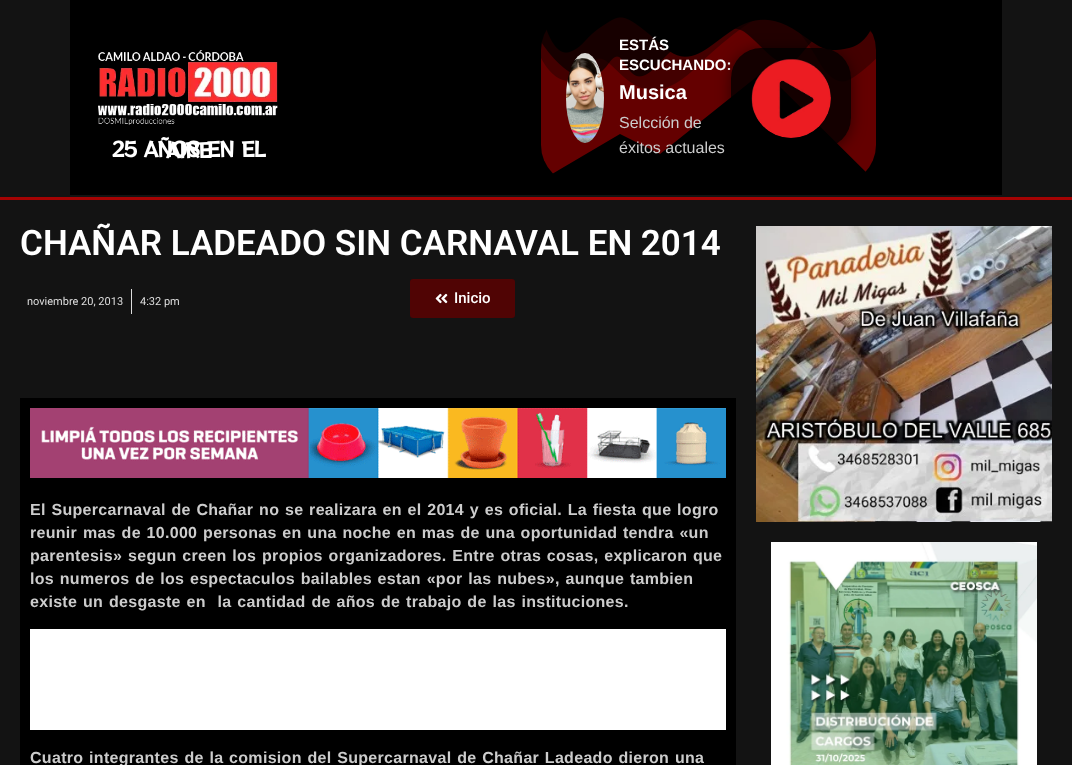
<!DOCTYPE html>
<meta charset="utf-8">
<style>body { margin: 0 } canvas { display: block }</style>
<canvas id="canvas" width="1072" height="765"></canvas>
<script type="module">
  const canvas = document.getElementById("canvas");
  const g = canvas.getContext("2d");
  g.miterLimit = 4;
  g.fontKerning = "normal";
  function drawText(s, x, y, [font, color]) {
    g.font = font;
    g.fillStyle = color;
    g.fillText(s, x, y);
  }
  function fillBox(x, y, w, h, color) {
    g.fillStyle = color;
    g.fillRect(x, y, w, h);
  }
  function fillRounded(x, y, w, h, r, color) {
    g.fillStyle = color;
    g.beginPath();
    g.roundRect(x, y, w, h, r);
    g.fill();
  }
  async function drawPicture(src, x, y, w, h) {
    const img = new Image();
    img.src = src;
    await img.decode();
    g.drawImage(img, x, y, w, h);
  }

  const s1 = ["bold 20px RocknRoll One", "#FFFFFF"];
  const s2 = ["bold 15px Liberation Sans", "#FFFFFF"];
  const s3 = ["bold 20px Liberation Sans", "#FFFFFF"];
  const s4 = ["16px Liberation Sans", "#CCCCCC"];
  const s5 = ["600 35px Roboto", "#FFFFFF"];
  const s6 = ["11px Roboto", "#DFDFDF"];
  const s7 = ["500 15px Roboto", "#FFFFFF"];
  const s8 = ["bold 16px Liberation Sans", "#CCCCCC"];

  fillBox(0, 0, 1072, 765, "#131313");
  fillBox(70, 0, 932, 195, "#000000");
  await drawPicture("pic1.png", 98, 50, 180, 75);
  g.letterSpacing = "-1.25px";
  g.wordSpacing = "2px";
  drawText("25 AÑOS EN EL", 111, 157, s1);
  g.wordSpacing = "0px";
  drawText("AIRE", 166, 158, s1);
  fillRounded(541, 10, 335, 175, 40, "#640000");
  await drawPicture("pic2.png", 541, 10, 335, 80);
  g.save();
  g.beginPath();
  g.rect(541, 69, 335, 117);
  g.clip();
  g.fillStyle = "#000000";
  g.beginPath();
  g.moveTo(620, 134);
  g.lineTo(660, 154);
  g.lineTo(764, 71);
  g.lineTo(876, 182);
  g.lineTo(876, 186);
  g.lineTo(540, 186);
  g.lineTo(540, 181);
  g.fill();
  g.restore();
  await drawPicture("pic3.png", 566, 53, 38, 90);
  g.letterSpacing = "0px";
  drawText("ESTÁS", 619, 50, s2);
  drawText("ESCUCHANDO:", 619, 70, s2);
  drawText("Musica", 619, 99, s3);
  drawText("Selcción de", 619, 128, s4);
  drawText("éxitos actuales", 619, 153, s4);
  g.save();
  g.beginPath();
  g.moveTo(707, 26);
  g.lineTo(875, 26);
  g.lineTo(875, 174);
  g.lineTo(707, 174);
  g.closePath();
  g.moveTo(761, 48);
  g.lineTo(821, 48);
  g.bezierCurveTo(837.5, 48, 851, 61.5, 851, 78);
  g.lineTo(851, 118);
  g.bezierCurveTo(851, 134.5, 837.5, 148, 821, 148);
  g.lineTo(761, 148);
  g.bezierCurveTo(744.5, 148, 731, 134.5, 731, 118);
  g.lineTo(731, 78);
  g.bezierCurveTo(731, 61.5, 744.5, 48, 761, 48);
  g.closePath();
  g.clip("evenodd");
  g.fillStyle = "rgba(0, 0, 0, 0.5)";
  g.filter = "blur(7.5px)";
  g.beginPath();
  g.roundRect(731, 50, 120, 100, 30);
  g.fill();
  g.filter = "none";
  g.restore();
  fillRounded(731, 48, 120, 100, 30, "rgba(0, 0, 0, 0.8)");
  await drawPicture("pic4.png", 751, 58, 80, 80);
  fillBox(0, 197, 1072, 3, "#A50303");
  drawText("CHAÑAR LADEADO SIN CARNAVAL EN 2014", 20, 255, s5);
  drawText("noviembre 20, 2013", 27, 305, s6);
  fillBox(131, 289, 1, 25, "#DDDDDD");
  drawText("4:32 pm", 140, 305, s6);
  fillRounded(410, 279, 105, 39, 3, "#500404");
  await drawPicture("pic5.png", 435, 293, 13, 11);
  drawText("Inicio", 454, 303, s7);
  fillBox(20, 398, 716, 367, "#000000");
  await drawPicture("pic6.png", 30, 408, 696, 70);
  g.letterSpacing = "0.3px";
  g.wordSpacing = "1px";
  drawText("El Supercarnaval de Chañar no se realizara en el 2014 y es oficial. La fiesta que logro", 30, 515, s8);
  drawText("reunir mas de 10.000 personas en una noche en mas de una oportunidad tendra «un", 30, 538, s8);
  drawText("parentesis» segun creen los propios organizadores. Entre otras cosas, explicaron que", 30, 561, s8);
  drawText("los numeros de los espectaculos bailables estan «por las nubes», aunque tambien", 30, 584, s8);
  g.wordSpacing = "1.1px";
  drawText("existe un desgaste en  la cantidad de años de trabajo de las instituciones.", 30, 607, s8);
  fillBox(30, 629, 696, 101, "#FFFFFF");
  g.wordSpacing = "1px";
  drawText("Cuatro integrantes de la comision del Supercarnaval de Chañar Ladeado dieron una", 30, 763, s8);
  await drawPicture("pic7.png", 756, 226, 296, 296);
  await drawPicture("pic8.png", 771, 542, 266, 223);
</script>
